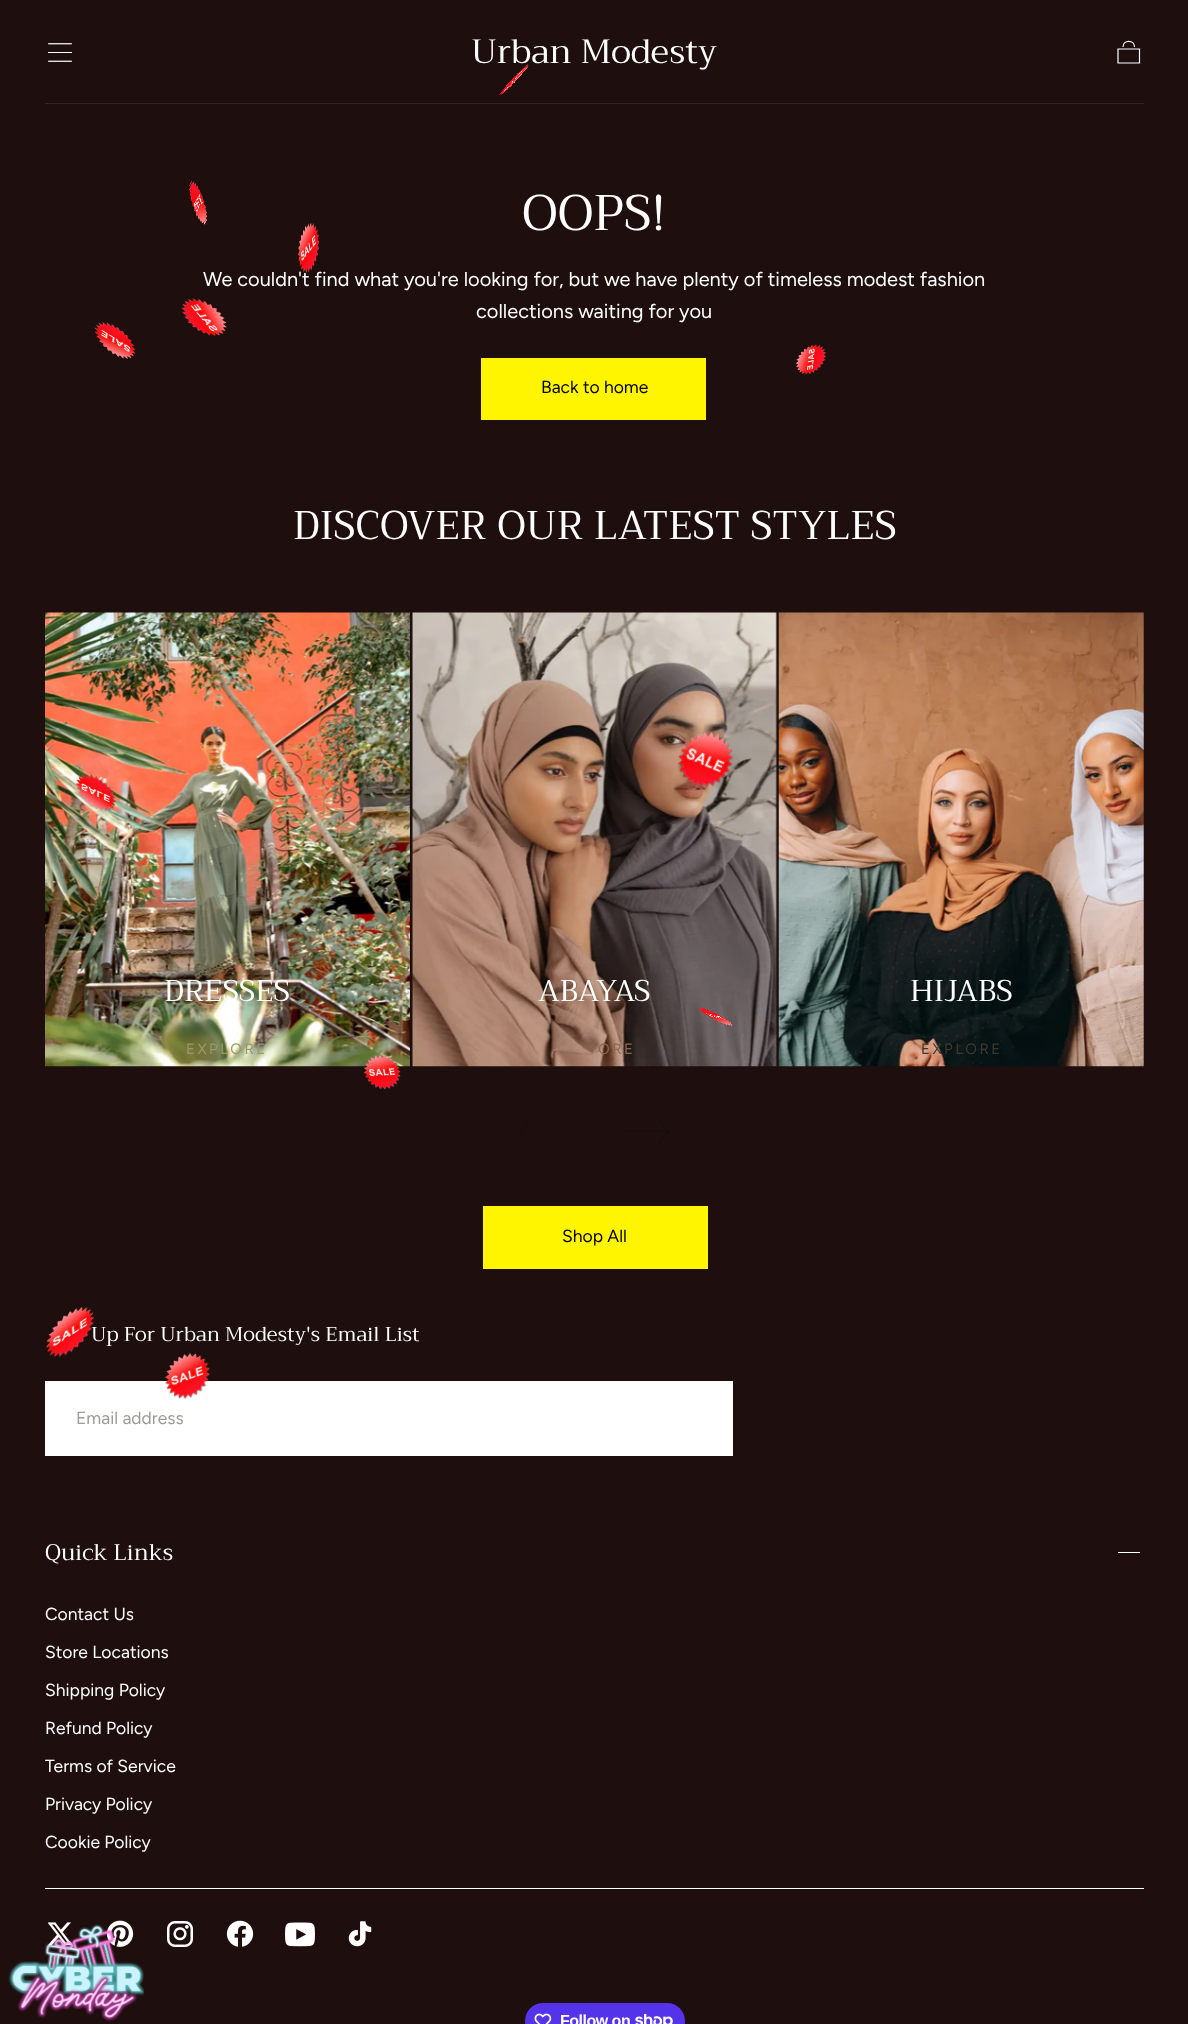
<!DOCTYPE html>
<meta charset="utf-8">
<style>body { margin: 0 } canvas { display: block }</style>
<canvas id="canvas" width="1188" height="2024"></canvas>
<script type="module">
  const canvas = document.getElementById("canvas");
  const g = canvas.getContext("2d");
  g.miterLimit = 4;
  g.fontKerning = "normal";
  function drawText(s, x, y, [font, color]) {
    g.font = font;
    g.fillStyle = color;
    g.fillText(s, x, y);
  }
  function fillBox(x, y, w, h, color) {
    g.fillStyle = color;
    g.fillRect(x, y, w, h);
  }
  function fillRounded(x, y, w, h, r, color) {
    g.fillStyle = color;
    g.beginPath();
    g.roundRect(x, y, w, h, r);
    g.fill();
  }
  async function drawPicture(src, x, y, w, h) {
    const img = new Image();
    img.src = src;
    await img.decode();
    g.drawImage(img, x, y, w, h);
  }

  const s1 = ["33.75px Trirong", "#FFFFFF"];
  const s2 = ["20px Figtree", "#FFFFFF"];
  const s3 = ["20px Trirong", "#FFFFFF"];
  const s4 = ["50px Trirong", "#FFFFFF"];
  const s5 = ["17.5px Figtree", "#000000"];
  const s6 = ["40px Trirong", "#FFFFFF"];
  const s7 = ["30px Trirong", "#FFFFFF"];
  const s8 = ["15px Figtree", "#969A6E"];
  const s9 = ["15px Figtree", "#8A6856"];
  const s10 = ["15px Figtree", "#403832"];
  const s11 = ["17.5px Figtree", "#9E9A99"];
  const s12 = ["22.5px Trirong", "#FFFFFF"];
  const s13 = ["17.5px Figtree", "#FFFFFF"];
  const s14 = ["bold 16px Liberation Sans", "#FFFFFF"];

  fillBox(0, 0, 1188, 2024, "#1F0E0E");
  await drawPicture("pic1.png", 48, 43, 24, 19);
  drawText("Urban Modesty", 471, 63, s1);
  g.beginPath();
  g.moveTo(1139.5, 63);
  g.lineTo(1118, 63);
  g.lineTo(1118, 49);
  g.lineTo(1139.5, 49);
  g.closePath();
  g.moveTo(1134.5, 47);
  g.bezierCurveTo(1134.5, 39.5, 1123, 39.5, 1123, 47);
  g.strokeStyle = "#FFFFFF";
  g.lineWidth = 1.2;
  g.stroke();
  fillBox(45, 103, 1099, 1, "#352626");
  await drawPicture("pic2.png", 499, 64, 31, 31);
  await drawPicture("pic3.png", 189, 180, 19, 46);
  drawText("We couldn't find what you're looking for, but we have plenty of timeless modest fashion", 203, 286, s2);
  await drawPicture("pic4.png", 298, 222, 22, 51);
  await drawPicture("pic5.png", 94, 321, 42, 38);
  await drawPicture("pic6.png", 180, 298, 47, 39);
  await drawPicture("pic7.png", 795, 344, 32, 31);
  await drawPicture("pic14.png", 45, 612, 365, 455);
  await drawPicture("pic8.png", 75, 774, 42, 37);
  await drawPicture("pic15.png", 412, 612, 365, 455);
  await drawPicture("pic9.png", 677, 731, 57, 58);
  await drawPicture("pic10.png", 697, 1007, 36, 19);
  await drawPicture("pic11.png", 363, 1055, 38, 35);
  drawText("Up For Urban Modesty's Email List", 91, 1341, s3);
  await drawPicture("pic12.png", 45, 1306, 50, 52);
  fillBox(45, 1381, 688, 75, "#FFFFFF");
  await drawPicture("pic13.png", 164, 1352, 46, 48);
  drawText("OOPS!", 522, 230, s4);
  drawText("collections waiting for you", 476, 318, s2);
  fillBox(481, 358, 225, 62, "#FFF500");
  drawText("Back to home", 541, 393, s5);
  drawText("DISCOVER OUR LATEST STYLES", 293, 539, s6);
  drawText("DRESSES", 164, 1001, s7);
  g.letterSpacing = "2.5px";
  drawText("EXPLORE", 186, 1054, s8);
  g.letterSpacing = "0px";
  drawText("ABAYAS", 538, 1001, s7);
  g.letterSpacing = "2.5px";
  drawText("ORE", 598, 1054, s9);
  await drawPicture("pic16.png", 778, 612, 366, 455);
  g.letterSpacing = "0px";
  drawText("HIJABS", 910, 1001, s7);
  g.letterSpacing = "2.5px";
  drawText("EXPLORE", 921, 1054, s10);
  g.beginPath();
  g.moveTo(569, 1131);
  g.lineTo(519.5, 1131);
  g.moveTo(529.5, 1143);
  g.bezierCurveTo(527, 1136.5, 524.5, 1134, 518.5, 1131.5);
  g.bezierCurveTo(524.5, 1128.5, 527, 1125.5, 529.5, 1119.5);
  g.strokeStyle = "#181010";
  g.stroke();
  g.beginPath();
  g.moveTo(620, 1131);
  g.lineTo(669.5, 1131);
  g.moveTo(659, 1143);
  g.bezierCurveTo(662, 1136.5, 664.5, 1134, 670, 1131.5);
  g.bezierCurveTo(664, 1128.5, 662, 1125.5, 659, 1119.5);
  g.strokeStyle = "#111111";
  g.stroke();
  fillBox(483, 1206, 225, 63, "#FFF500");
  g.letterSpacing = "0px";
  drawText("Shop All", 562, 1242, s5);
  drawText("Email address", 76, 1424, s11);
  fillBox(45, 1888, 1099, 1, "#FFFFFF");
  drawText("Quick Links", 45, 1560, s12);
  fillBox(1118, 1552, 22, 1, "#FFFFFF");
  drawText("Contact Us", 45, 1620, s13);
  drawText("Store Locations", 45, 1658, s13);
  drawText("Shipping Policy", 45, 1696, s13);
  drawText("Refund Policy", 45, 1734, s13);
  drawText("Terms of Service", 45, 1772, s13);
  drawText("Privacy Policy", 45, 1810, s13);
  drawText("Cookie Policy", 45, 1848, s13);
  await drawPicture("pic17.png", 48, 1922, 25, 24);
  await drawPicture("pic18.png", 106, 1920, 28, 27);
  await drawPicture("pic19.png", 167, 1921, 26, 26);
  await drawPicture("pic20.png", 226, 1920, 28, 27);
  await drawPicture("pic21.png", 285, 1922, 30, 25);
  await drawPicture("pic22.png", 348, 1921, 24, 26);
  fillRounded(525, 2003, 160, 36, 18, "#5433EB");
  await drawPicture("pic23.png", 534, 2013, 18, 11);
  g.letterSpacing = "-0.5px";
  drawText("Follow on", 560, 2026, s14);
  await drawPicture("pic24.png", 635, 2014, 38, 10);
  await drawPicture("pic25.png", 8, 1924, 136, 98);
</script>
